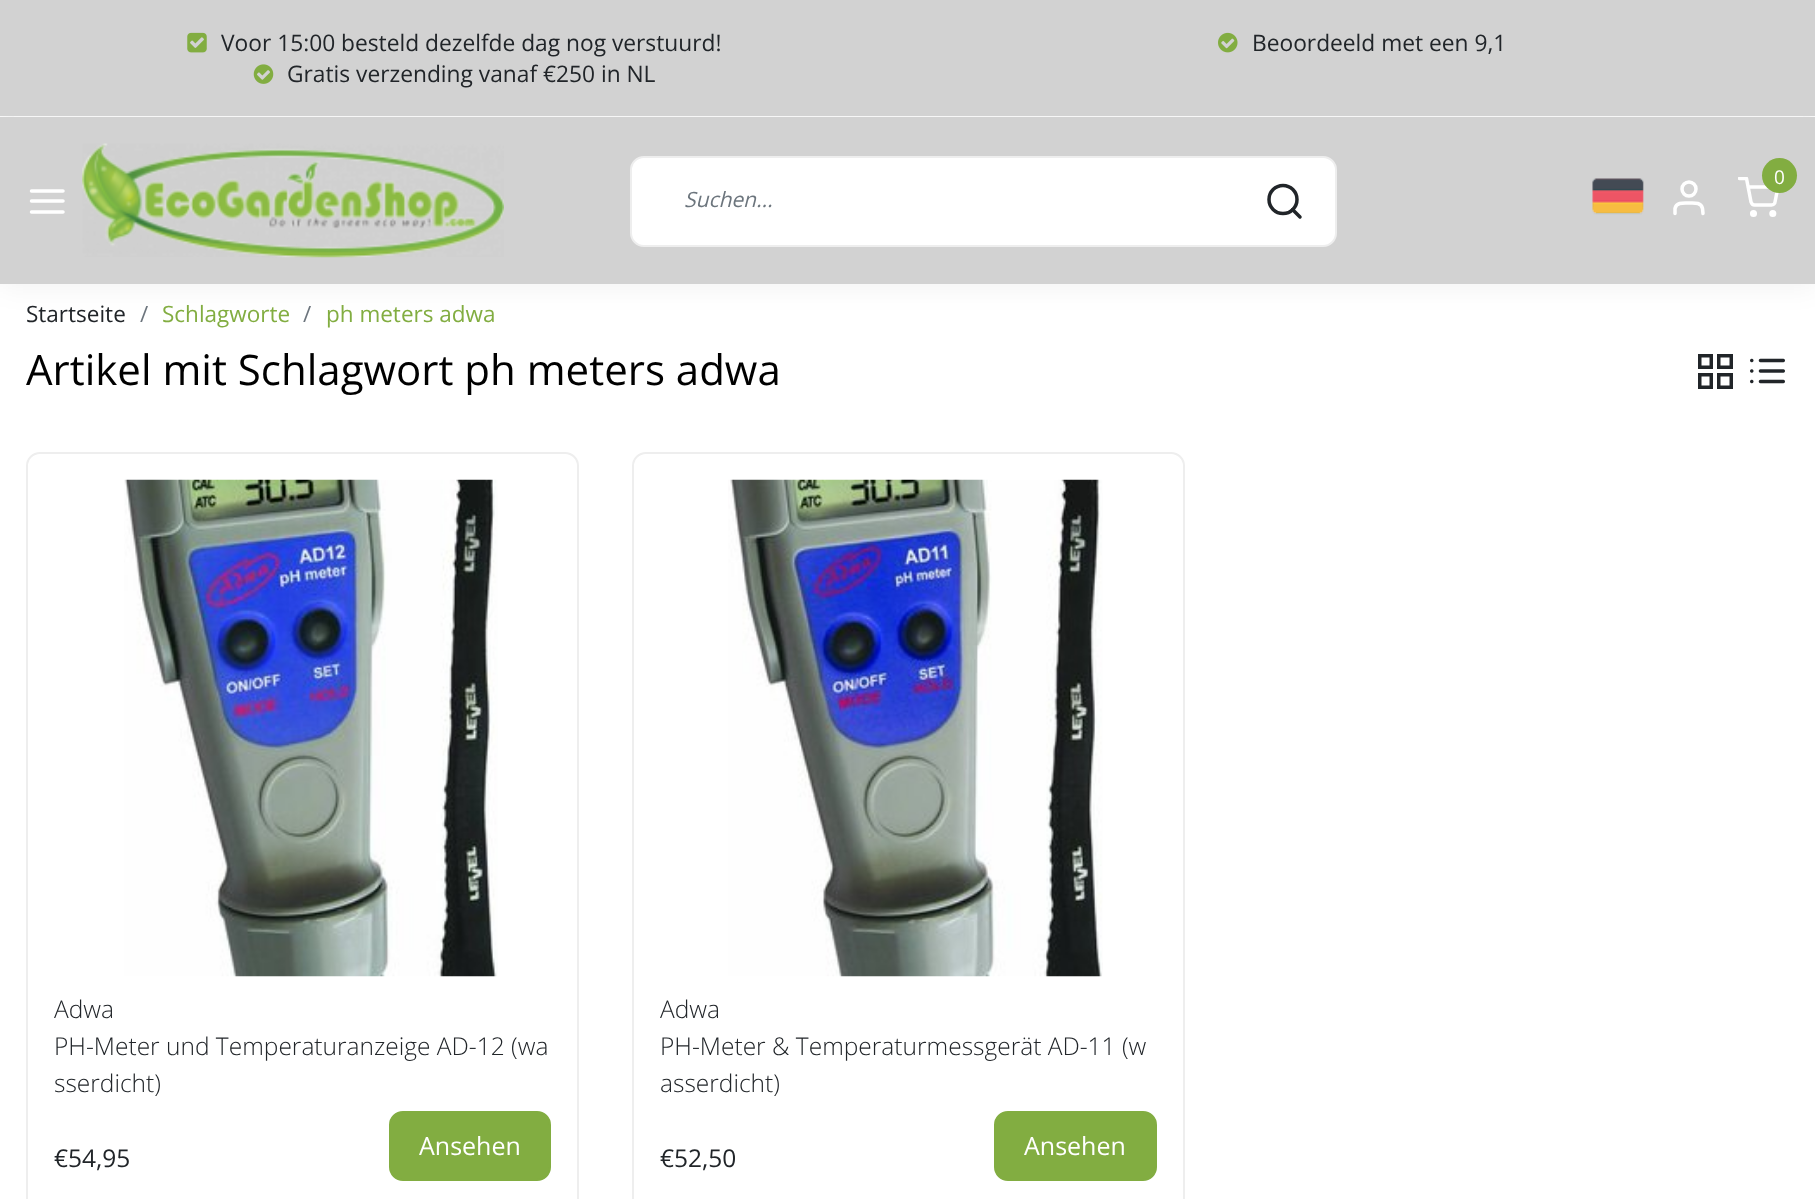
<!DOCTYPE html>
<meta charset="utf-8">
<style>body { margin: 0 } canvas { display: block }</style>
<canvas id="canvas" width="1815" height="1199"></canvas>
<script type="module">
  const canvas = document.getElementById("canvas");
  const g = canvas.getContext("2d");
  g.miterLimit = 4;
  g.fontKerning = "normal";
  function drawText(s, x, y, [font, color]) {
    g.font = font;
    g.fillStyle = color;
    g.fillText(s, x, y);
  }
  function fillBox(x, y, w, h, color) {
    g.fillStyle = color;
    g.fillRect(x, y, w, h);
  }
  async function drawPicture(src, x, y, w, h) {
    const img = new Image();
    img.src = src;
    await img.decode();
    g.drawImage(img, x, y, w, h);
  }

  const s1 = ["22.75px Open Sans", "#212529"];
  const s2 = ["19px Open Sans", "#FFFFFF"];
  const s3 = ["italic 21px Open Sans", "#6C757D"];
  const s4 = ["22.5px Open Sans", "#212529"];
  const s5 = ["22.5px Open Sans", "#6C757D"];
  const s6 = ["22.5px Open Sans", "#82AD41"];
  const s7 = ["42px Open Sans", "#000000"];
  const s8 = ["300 24.5px Open Sans", "#212529"];
  const s9 = ["25px Open Sans", "#FFFFFF"];
  const s10 = ["24.5px Open Sans", "#212529"];

  fillBox(0, 0, 1815, 1199, "#FFFFFF");
  g.fillStyle = "rgba(0, 0, 0, 0.05)";
  g.filter = "blur(14px)";
  g.beginPath();
  g.rect(0, 4, 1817, 283);
  g.fill();
  g.filter = "none";
  fillBox(0, 0, 1815, 116, "#D2D2D2");
  fillBox(14, 116, 1789, 1, "#F7F7F7");
  await drawPicture("pic1.png", 187, 32, 20, 21);
  drawText("Voor 15:00 besteld dezelfde dag nog verstuurd!", 221, 51, s1);
  await drawPicture("pic2.png", 1218, 32, 20, 21);
  drawText("Beoordeeld met een 9,1", 1252, 51, s1);
  await drawPicture("pic3.png", 253, 64, 21, 20);
  drawText("Gratis verzending vanaf €250 in NL", 287, 82, s1);
  fillBox(0, 117, 1815, 167, "#D2D2D2");
  g.beginPath();
  g.moveTo(31.5, 201);
  g.lineTo(63, 201);
  g.moveTo(31.5, 191);
  g.lineTo(63, 191);
  g.moveTo(31.5, 212);
  g.lineTo(63, 212);
  g.strokeStyle = "#FFFFFF";
  g.lineWidth = 3.5;
  g.lineCap = "round";
  g.lineJoin = "round";
  g.stroke();
  await drawPicture("pic4.png", 82, 143, 422, 115);
  await drawPicture("pic5.png", 1592, 178, 52, 37);
  g.beginPath();
  g.moveTo(1703, 213.5);
  g.lineTo(1702.5, 208.5);
  g.bezierCurveTo(1701, 202, 1694, 203, 1689, 203);
  g.bezierCurveTo(1683.5, 203, 1676.5, 202, 1675, 208.5);
  g.lineTo(1675, 213.5);
  g.stroke();
  g.beginPath();
  g.arc(1689, 189, 7, 0, Math.PI * 2);
  g.stroke();
  g.save();
  g.beginPath();
  g.rect(1738, 177, 42, 42);
  g.clip();
  g.beginPath();
  g.moveTo(1739.5, 178.5);
  g.lineTo(1746.5, 178.5);
  g.lineTo(1751, 202);
  g.bezierCurveTo(1751.5, 203.5, 1753, 205, 1754.5, 205);
  g.lineTo(1771.5, 205);
  g.bezierCurveTo(1773.5, 205, 1775, 203.5, 1775, 202);
  g.lineTo(1778, 187);
  g.lineTo(1748, 187);
  g.stroke();
  g.restore();
  g.fillStyle = "#82AD41";
  g.beginPath();
  g.arc(1779.5, 175.5, 17.5, 0, Math.PI * 2);
  g.fill();
  drawText("0", 1774, 184, s2);
  g.beginPath();
  g.arc(1753.5, 213.5, 1.8, 0, Math.PI * 2);
  g.stroke();
  g.beginPath();
  g.arc(1772.8, 213.5, 1.8, 0, Math.PI * 2);
  g.stroke();
  g.beginPath();
  g.roundRect(631, 157, 705, 89, 13);
  g.fill();
  g.strokeStyle = "#EEEEEE";
  g.lineWidth = 2;
  g.lineJoin = "miter";
  g.stroke();
  drawText("Suchen...", 684, 207, s3);
  g.beginPath();
  g.arc(1283, 199.5, 14, 0, Math.PI * 2);
  g.strokeStyle = "#212529";
  g.lineWidth = 3.5;
  g.stroke();
  g.beginPath();
  g.moveTo(1300, 217);
  g.lineTo(1292.5, 209.5);
  g.lineJoin = "round";
  g.stroke();
  drawText("Startseite", 26, 322, s4);
  drawText("/", 140, 322, s5);
  drawText("Schlagworte", 162, 322, s6);
  drawText("/", 303, 322, s5);
  drawText("ph meters adwa", 326, 322, s6);
  drawText("Artikel mit Schlagwort ph meters adwa", 26, 385, s7);
  g.lineJoin = "miter";
  g.strokeRect(1699.75, 355.75, 11.5, 11.5);
  g.strokeRect(1718.75, 355.75, 12.5, 11.5);
  g.strokeRect(1718.75, 374.75, 12.5, 12.5);
  g.strokeRect(1699.75, 374.75, 11.5, 12.5);
  await drawPicture("pic6.png", 1750, 358, 35, 26);
  g.beginPath();
  g.roundRect(27, 453, 551, 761, 13);
  g.strokeStyle = "#EEEEEE";
  g.lineWidth = 2;
  g.stroke();
  await drawPicture("pic7.png", 124, 479, 374, 498);
  drawText("Adwa", 54, 1018, s8);
  drawText("PH-Meter und Temperaturanzeige AD-12 (wa", 54, 1055, s8);
  drawText("sserdicht)", 54, 1092, s8);
  g.fillStyle = "#82AD41";
  g.beginPath();
  g.roundRect(390, 1112, 160, 68, 13);
  g.fill();
  g.strokeStyle = "#82AD41";
  g.stroke();
  drawText("Ansehen", 419, 1155, s9);
  drawText("€54,95", 54, 1167, s10);
  g.beginPath();
  g.roundRect(633, 453, 551, 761, 13);
  g.strokeStyle = "#EEEEEE";
  g.stroke();
  await drawPicture("pic8.png", 728, 479, 375, 498);
  drawText("Adwa", 660, 1018, s8);
  drawText("PH-Meter & Temperaturmessgerät AD-11 (w", 660, 1055, s8);
  drawText("asserdicht)", 660, 1092, s8);
  g.fillStyle = "#82AD41";
  g.beginPath();
  g.roundRect(995, 1112, 161, 68, 13);
  g.fill();
  g.strokeStyle = "#82AD41";
  g.stroke();
  drawText("Ansehen", 1024, 1155, s9);
  drawText("€52,50", 660, 1167, s10);
</script>
